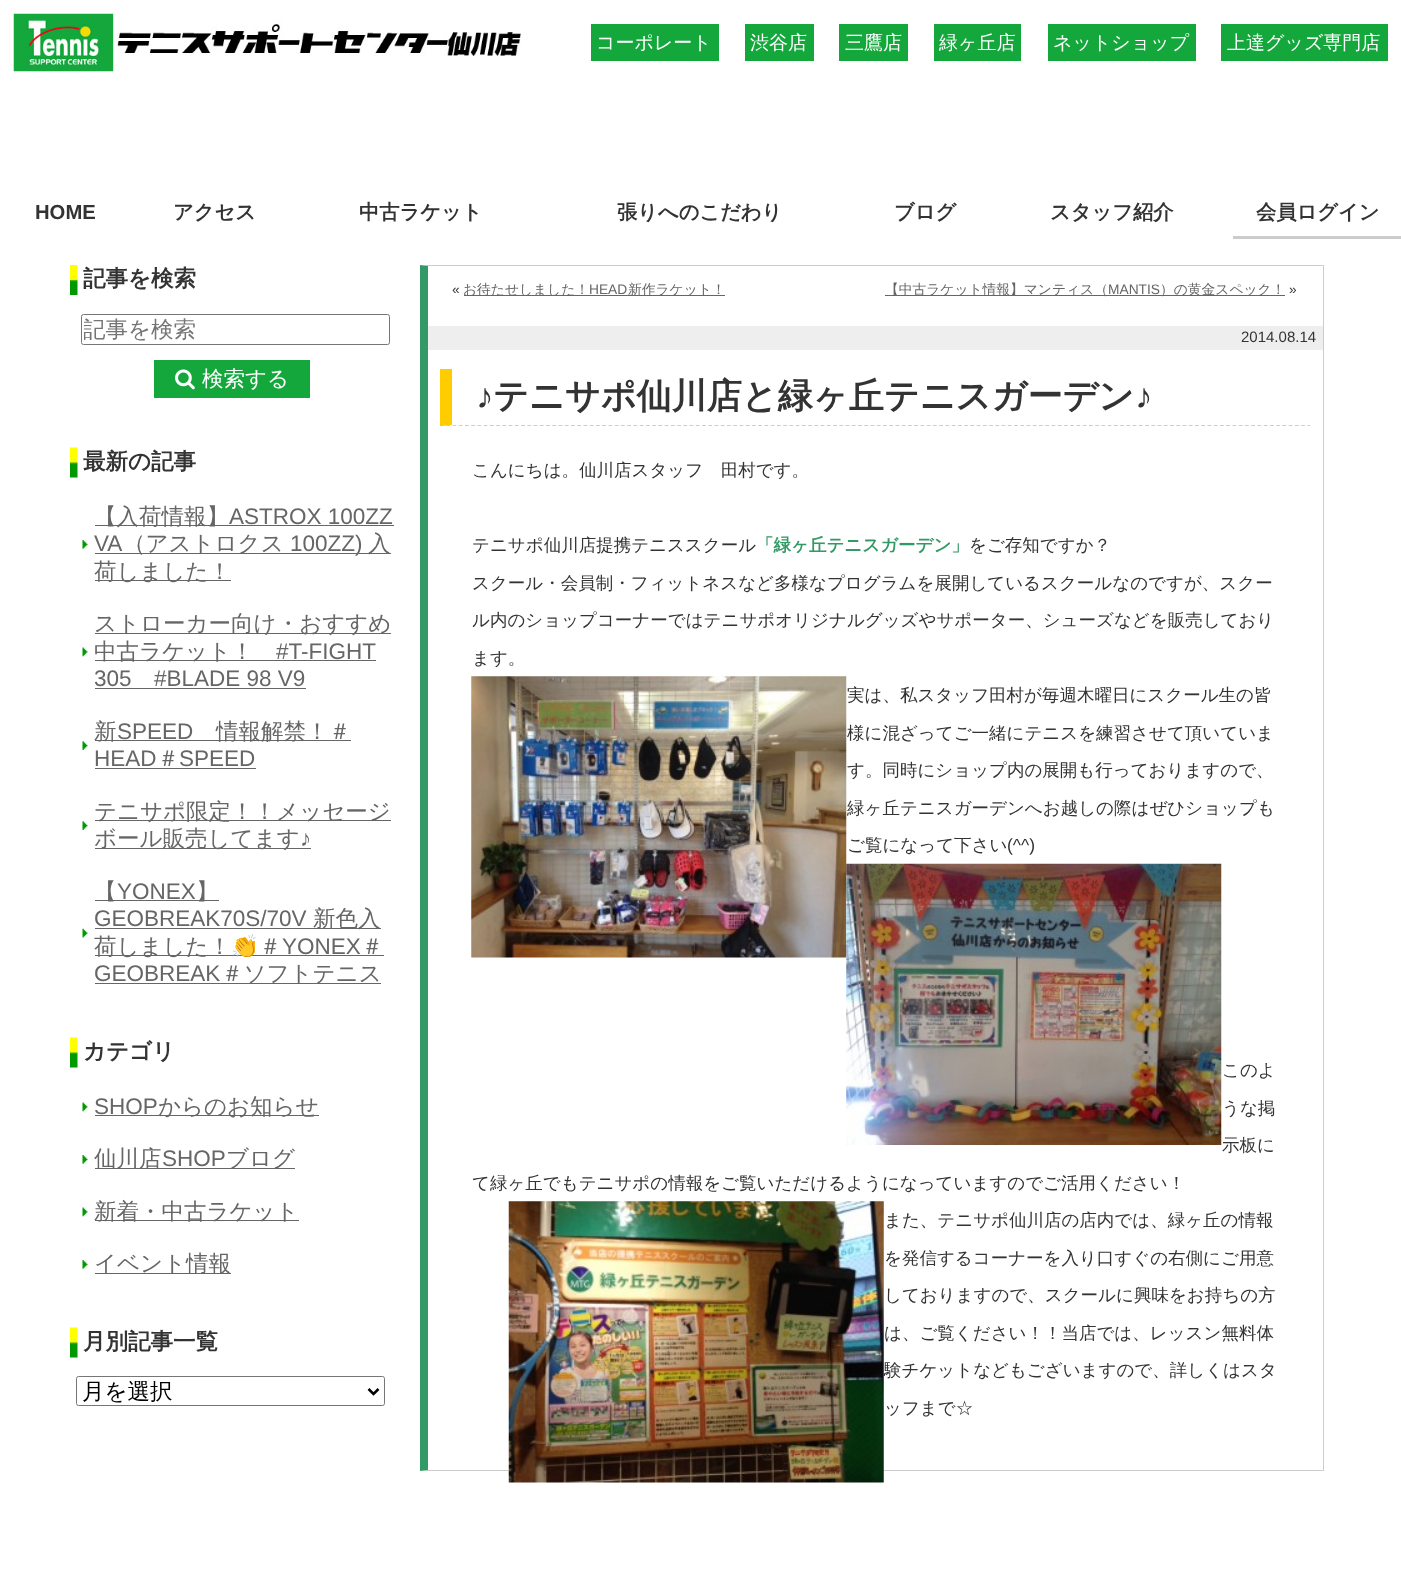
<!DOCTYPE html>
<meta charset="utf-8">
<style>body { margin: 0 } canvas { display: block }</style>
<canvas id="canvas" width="1401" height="1575"></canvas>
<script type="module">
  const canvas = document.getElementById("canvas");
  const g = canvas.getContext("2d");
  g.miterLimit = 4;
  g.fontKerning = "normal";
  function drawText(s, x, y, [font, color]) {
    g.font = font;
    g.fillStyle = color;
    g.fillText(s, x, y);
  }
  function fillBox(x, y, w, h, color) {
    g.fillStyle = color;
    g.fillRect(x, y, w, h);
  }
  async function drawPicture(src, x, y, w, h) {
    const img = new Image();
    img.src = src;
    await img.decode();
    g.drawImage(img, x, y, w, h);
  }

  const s1 = ["500 19px WenQuanYi Zen Hei", "#FFFFFF"];
  const s2 = ["bold 20.25px Liberation Sans", "#333333"];
  const s3 = ["bold 20.25px WenQuanYi Zen Hei", "#333333"];
  const s4 = ["bold 22.5px WenQuanYi Zen Hei", "#333333"];
  const s5 = ["500 22.5px WenQuanYi Zen Hei", "#757575"];
  const s6 = ["500 21.5px WenQuanYi Zen Hei", "#FFFFFF"];
  const s7 = ["500 22.5px WenQuanYi Zen Hei", "#666666"];
  const s8 = ["22.5px Liberation Sans", "#666666"];
  const s9 = ["22.5px Noto Color Emoji", "#666666"];
  const s10 = ["500 22.5px WenQuanYi Zen Hei", "#000000"];
  const s11 = ["13.75px Liberation Sans", "#333333"];
  const s12 = ["500 13.75px WenQuanYi Zen Hei", "#666666"];
  const s13 = ["13.75px Liberation Sans", "#666666"];
  const s14 = ["15px Liberation Sans", "#333333"];
  const s15 = ["bold 35.1px Liberation Sans", "#333333"];
  const s16 = ["bold 35.1px WenQuanYi Zen Hei", "#333333"];
  const s17 = ["500 17.5px WenQuanYi Zen Hei", "#333333"];
  const s18 = ["bold 17.5px WenQuanYi Zen Hei", "#339966"];
  const s19 = ["17.5px Liberation Sans", "#333333"];

  fillBox(0, 0, 1401, 1575, "#FFFFFF");
  await drawPicture("pic1.png", 13, 13, 508, 59);
  fillBox(591, 24, 128, 37, "#14A73C");
  drawText("コーポレート", 596, 49, s1);
  fillBox(745, 24, 69, 37, "#14A73C");
  drawText("渋谷店", 750, 49, s1);
  fillBox(839, 24, 69, 37, "#14A73C");
  drawText("三鷹店", 845, 49, s1);
  fillBox(934, 24, 87, 37, "#14A73C");
  drawText("緑ヶ丘店", 939, 49, s1);
  fillBox(1048, 24, 148, 37, "#14A73C");
  drawText("ネットショップ", 1053, 49, s1);
  fillBox(1221, 24, 167, 37, "#14A73C");
  drawText("上達グッズ専門店", 1227, 49, s1);
  drawText("HOME", 35, 219, s2);
  drawText("アクセス", 173, 219, s3);
  drawText("中古ラケット", 359, 219, s3);
  drawText("張りへのこだわり", 617, 219, s3);
  drawText("ブログ", 894, 219, s3);
  drawText("スタッフ紹介", 1050, 219, s3);
  fillBox(1233, 236, 168, 3, "#CCCCCC");
  drawText("会員ログイン", 1256, 219, s3);
  await drawPicture("pic2.png", 70, 265, 8, 30);
  drawText("記事を検索", 83, 286, s4);
  g.beginPath();
  g.roundRect(81.5, 314.5, 308, 30, 2);
  g.strokeStyle = "#767676";
  g.stroke();
  g.save();
  g.beginPath();
  g.rect(84, 316, 304, 27);
  g.clip();
  drawText("記事を検索", 83, 337, s5);
  g.restore();
  fillBox(154, 360, 156, 38, "#14A73C");
  await drawPicture("pic3.png", 175, 369, 20, 21);
  drawText("検索する", 202, 386, s6);
  await drawPicture("pic4.png", 70, 447, 8, 31);
  drawText("最新の記事", 83, 469, s4);
  await drawPicture("pic5.png", 82, 540, 6, 9);
  fillBox(95, 525, 299, 1, "#666666");
  drawText("【入荷情報】", 94, 524, s7);
  drawText("ASTROX 100ZZ", 229, 524, s8);
  drawText("VA", 94, 551, s8);
  fillBox(95, 553, 296, 1, "#666666");
  drawText("（アストロクス", 123, 551, s7);
  drawText("100ZZ)", 290, 551, s8);
  drawText("入", 368, 551, s7);
  fillBox(95, 580, 136, 1, "#666666");
  drawText("荷しました！", 94, 579, s7);
  await drawPicture("pic6.png", 82, 647, 6, 10);
  fillBox(95, 633, 296, 1, "#666666");
  drawText("ストローカー向け・おすすめ", 94, 631, s7);
  fillBox(95, 660, 281, 1, "#666666");
  drawText("中古ラケット！", 94, 659, s7);
  drawText("#T-FIGHT", 276, 659, s8);
  drawText("305", 94, 686, s8);
  fillBox(95, 688, 211, 1, "#666666");
  drawText("#BLADE 98 V9", 154, 686, s8);
  await drawPicture("pic7.png", 82, 741, 6, 9);
  fillBox(95, 740, 256, 1, "#666666");
  drawText("新", 94, 739, s7);
  drawText("SPEED", 117, 739, s8);
  drawText("情報解禁！＃", 216, 739, s7);
  drawText("HEAD", 94, 766, s8);
  drawText("＃", 157, 766, s7);
  drawText("SPEED", 179, 766, s8);
  fillBox(95, 768, 161, 1, "#666666");
  await drawPicture("pic7.png", 82, 821, 6, 9);
  fillBox(95, 820, 296, 1, "#666666");
  drawText("テニサポ限定！！メッセージ", 94, 819, s7);
  fillBox(95, 848, 216, 1, "#666666");
  drawText("ボール販売してます", 94, 846, s7);
  drawText("♪", 300, 846, s8);
  await drawPicture("pic8.png", 82, 928, 6, 10);
  fillBox(95, 900, 124, 1, "#666666");
  drawText("【", 94, 899, s7);
  drawText("YONEX", 117, 899, s8);
  drawText("】", 196, 899, s7);
  drawText("GEOBREAK70S/70V", 94, 926, s8);
  fillBox(95, 928, 286, 1, "#666666");
  drawText("新色入", 313, 926, s7);
  fillBox(95, 955, 289, 1, "#666666");
  drawText("荷しました！", 94, 954, s7);
  drawText("👏", 231, 954, s9);
  drawText("＃", 259, 954, s7);
  drawText("YONEX", 282, 954, s8);
  drawText("＃", 361, 954, s7);
  drawText("GEOBREAK", 94, 981, s8);
  fillBox(95, 983, 286, 1, "#666666");
  drawText("＃ソフトテニス", 221, 981, s7);
  await drawPicture("pic4.png", 70, 1037, 8, 31);
  drawText("カテゴリ", 83, 1059, s4);
  await drawPicture("pic6.png", 82, 1102, 6, 10);
  drawText("SHOP", 94, 1114, s8);
  fillBox(95, 1115, 224, 1, "#666666");
  drawText("からのお知らせ", 158, 1114, s7);
  await drawPicture("pic5.png", 82, 1155, 6, 9);
  fillBox(95, 1168, 200, 1, "#666666");
  drawText("仙川店", 94, 1166, s7);
  drawText("SHOP", 162, 1166, s8);
  drawText("ブログ", 226, 1166, s7);
  await drawPicture("pic6.png", 82, 1207, 6, 10);
  fillBox(95, 1220, 204, 1, "#666666");
  drawText("新着・中古ラケット", 94, 1219, s7);
  await drawPicture("pic5.png", 82, 1260, 6, 9);
  fillBox(95, 1273, 136, 1, "#666666");
  drawText("イベント情報", 94, 1271, s7);
  await drawPicture("pic4.png", 70, 1327, 8, 31);
  drawText("月別記事一覧", 83, 1349, s4);
  g.beginPath();
  g.roundRect(76.5, 1376.5, 308, 29, 2);
  g.stroke();
  g.beginPath();
  g.moveTo(368.5, 1389);
  g.lineTo(373.5, 1394);
  g.lineTo(378.5, 1389);
  g.strokeStyle = "#000000";
  g.lineWidth = 2.5;
  g.stroke();
  drawText("月を選択", 82, 1399, s10);
  g.fillStyle = "#CCCCCC";
  g.beginPath();
  g.moveTo(420, 265);
  g.lineTo(1324, 265);
  g.lineTo(1322, 266);
  g.lineTo(428, 266);
  g.closePath();
  g.fill();
  fillBox(1323, 265, 1, 1206, "#CCCCCC");
  g.beginPath();
  g.moveTo(1324, 1471);
  g.lineTo(420, 1471);
  g.lineTo(428, 1470);
  g.lineTo(1322, 1470);
  g.closePath();
  g.fill();
  g.fillStyle = "#339966";
  g.beginPath();
  g.moveTo(420, 1471);
  g.lineTo(420, 265);
  g.lineTo(428, 266);
  g.lineTo(428, 1470);
  g.closePath();
  g.fill();
  drawText("«", 452, 294, s11);
  fillBox(464, 295, 261, 1, "#666666");
  drawText("お待たせしました！", 463, 294, s12);
  drawText("HEAD", 589, 294, s13);
  drawText("新作ラケット！", 628, 294, s12);
  fillBox(885, 295, 400, 1, "#666666");
  drawText("【中古ラケット情報】マンティス（", 885, 294, s12);
  drawText("MANTIS", 1108, 294, s13);
  drawText("）の黄金スペック！", 1160, 294, s12);
  drawText("»", 1289, 294, s11);
  fillBox(428, 326, 895, 24, "#EEEEEE");
  drawText("2014.08.14", 1241, 342, s14);
  g.beginPath();
  g.moveTo(440, 425.5);
  g.lineTo(1310, 425.5);
  g.strokeStyle = "#CCCCCC";
  g.lineWidth = 1.2;
  g.setLineDash([3.75, 2.49]);
  g.stroke();
  g.fillStyle = "#FFCC00";
  g.beginPath();
  g.moveTo(440, 426);
  g.lineTo(440, 369);
  g.lineTo(452, 369);
  g.lineTo(452, 425);
  g.closePath();
  g.fill();
  drawText("♪", 476, 408, s15);
  drawText("テニサポ仙川店と緑ヶ丘テニスガーデン", 493, 408, s16);
  drawText("♪", 1135, 408, s15);
  drawText("こんにちは。仙川店スタッフ　田村です。", 472, 476, s17);
  drawText("テニサポ仙川店提携テニススクール", 472, 551, s17);
  drawText("「緑ヶ丘テニスガーデン」", 756, 551, s18);
  drawText("をご存知ですか？", 969, 551, s17);
  drawText("スクール・会員制・フィットネスなど多様なプログラムを展開しているスクールなのですが、スクー", 472, 589, s17);
  drawText("ル内のショップコーナーではテニサポオリジナルグッズやサポーター、シューズなどを販売しており", 472, 626, s17);
  drawText("ます。", 472, 664, s17);
  await drawPicture("pic9.png", 471, 676, 376, 282);
  drawText("実は、私スタッフ田村が毎週木曜日にスクール生の皆", 847, 701, s17);
  drawText("様に混ざってご一緒にテニスを練習させて頂いていま", 847, 739, s17);
  drawText("す。同時にショップ内の展開も行っておりますので、", 847, 776, s17);
  drawText("緑ヶ丘テニスガーデンへお越しの際はぜひショップも", 847, 814, s17);
  drawText("ご覧になって下さい", 847, 851, s17);
  drawText("(^^)", 1007, 851, s19);
  await drawPicture("pic10.png", 846, 863, 376, 282);
  drawText("このよ", 1222, 1076, s17);
  drawText("うな掲", 1222, 1114, s17);
  drawText("示板に", 1222, 1151, s17);
  drawText("て緑ヶ丘でもテニサポの情報をご覧いただけるようになっていますのでご活用ください！", 472, 1189, s17);
  await drawPicture("pic11.png", 508, 1201, 376, 282);
  drawText("また、テニサポ仙川店の店内では、緑ヶ丘の情報", 884, 1226, s17);
  drawText("を発信するコーナーを入り口すぐの右側にご用意", 884, 1264, s17);
  drawText("しておりますので、スクールに興味をお持ちの方", 884, 1301, s17);
  drawText("は、ご覧ください！！当店では、レッスン無料体", 884, 1339, s17);
  drawText("験チケットなどもございますので、詳しくはスタ", 884, 1376, s17);
  drawText("ッフまで☆", 884, 1414, s17);
</script>
